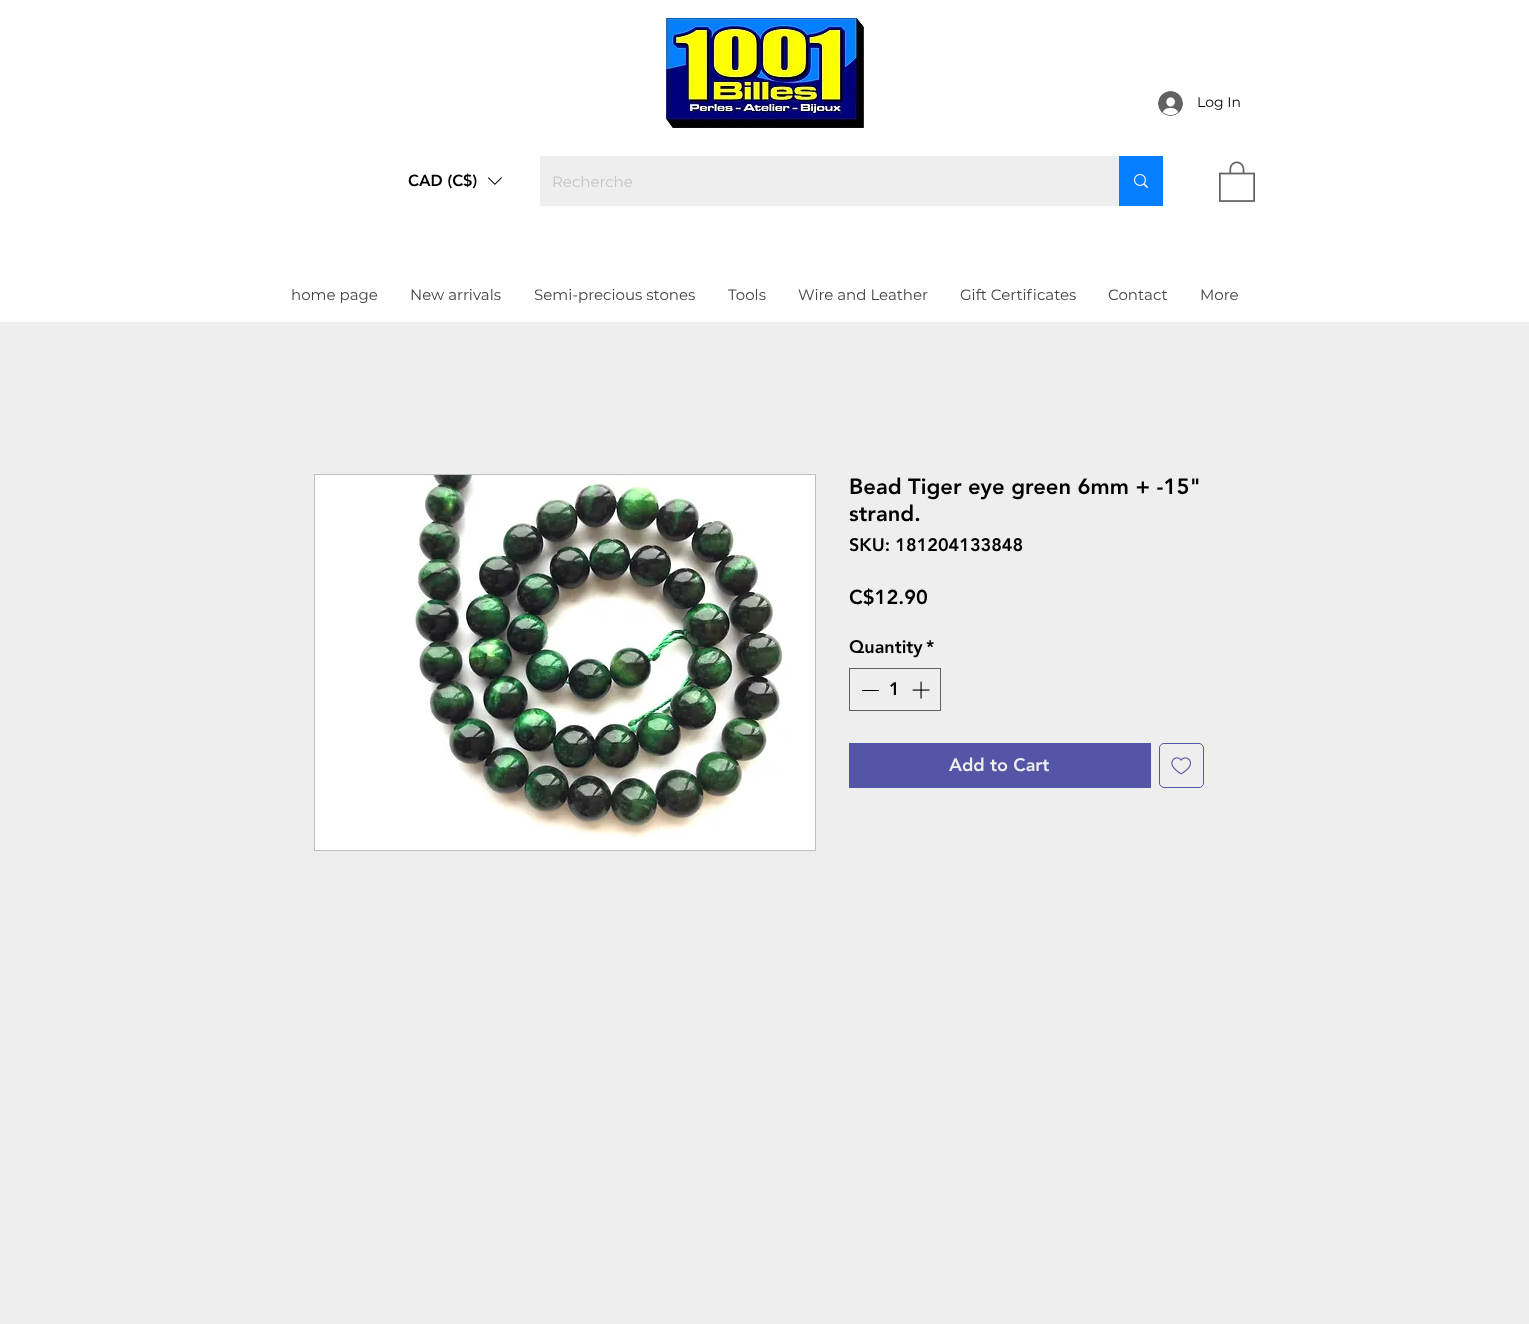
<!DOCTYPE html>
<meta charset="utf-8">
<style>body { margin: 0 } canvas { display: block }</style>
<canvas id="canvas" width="1529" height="1324"></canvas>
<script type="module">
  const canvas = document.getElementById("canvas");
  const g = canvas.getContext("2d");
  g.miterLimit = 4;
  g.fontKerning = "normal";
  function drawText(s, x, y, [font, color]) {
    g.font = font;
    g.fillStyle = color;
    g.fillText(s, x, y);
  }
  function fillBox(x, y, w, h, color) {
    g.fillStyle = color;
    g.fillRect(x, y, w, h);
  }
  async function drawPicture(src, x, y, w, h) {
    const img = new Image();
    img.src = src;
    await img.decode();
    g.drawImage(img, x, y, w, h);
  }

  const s1 = ["14px Montserrat", "#000000"];
  const s2 = ["900 16px 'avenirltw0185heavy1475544'", "#000000"];
  const s3 = ["15px Montserrat", "#C5C5C5"];
  const s4 = ["15px Montserrat", "#444444"];
  const s5 = ["900 22px 'avenirltw0185heavy1475544'", "#000000"];
  const s6 = ["900 18px 'avenirltw0185heavy1475544'", "#000000"];
  const s7 = ["900 20px 'avenirltw0185heavy1475544'", "#000000"];
  const s8 = ["900 18px 'avenirltw0185heavy1475544'", "#EEEEEE"];

  fillBox(0, 0, 1529, 1324, "#EEEEEE");
  fillBox(0, 0, 1529, 322, "#FFFFFF");
  await drawPicture("pic1.png", 666, 18, 198, 110);
  await drawPicture("pic2.png", 1158, 91, 25, 25);
  drawText("Log In", 1197, 107, s1);
  drawText("CAD (C$)", 408, 186, s2);
  await drawPicture("pic3.png", 487, 177, 15, 8);
  fillBox(540, 156, 579, 50, "#EEEEEE");
  drawText("Recherche", 552, 187, s3);
  fillBox(1119, 156, 44, 50, "#057FFF");
  await drawPicture("pic4.png", 1134, 174, 14, 14);
  await drawPicture("pic5.png", 1219, 161, 36, 41);
  drawText("home page", 291, 300, s4);
  drawText("New arrivals", 410, 300, s4);
  drawText("Semi-precious stones", 534, 300, s4);
  drawText("Tools", 728, 300, s4);
  drawText("Wire and Leather", 798, 300, s4);
  drawText("Gift Certificates", 960, 300, s4);
  drawText("Contact", 1108, 300, s4);
  drawText("More", 1200, 300, s4);
  g.strokeStyle = "#BEBEBE";
  g.strokeRect(314.5, 474.5, 501, 376);
  await drawPicture("pic6.png", 315, 475, 500, 375);
  drawText("Bead Tiger eye green 6mm + -15\"", 849, 494, s5);
  drawText("strand.", 849, 521, s5);
  drawText("SKU: 181204133848", 849, 551, s6);
  drawText("C$12.90", 849, 604, s7);
  drawText("Quantity", 849, 653, s6);
  drawText("*", 926, 653, s6);
  g.strokeStyle = "#5F5F5F";
  g.strokeRect(849.5, 668.5, 91, 42);
  fillBox(862, 690, 17, 1, "#000000");
  drawText("1", 889, 695, s6);
  await drawPicture("pic7.png", 912, 681, 18, 18);
  fillBox(849, 743, 302, 45, "#5555A7");
  drawText("Add to Cart", 949, 771, s8);
  g.beginPath();
  g.roundRect(1159.5, 743.5, 44, 44, 4.5);
  g.strokeStyle = "#5555A7";
  g.stroke();
  await drawPicture("pic8.png", 1171, 757, 20, 18);
</script>
